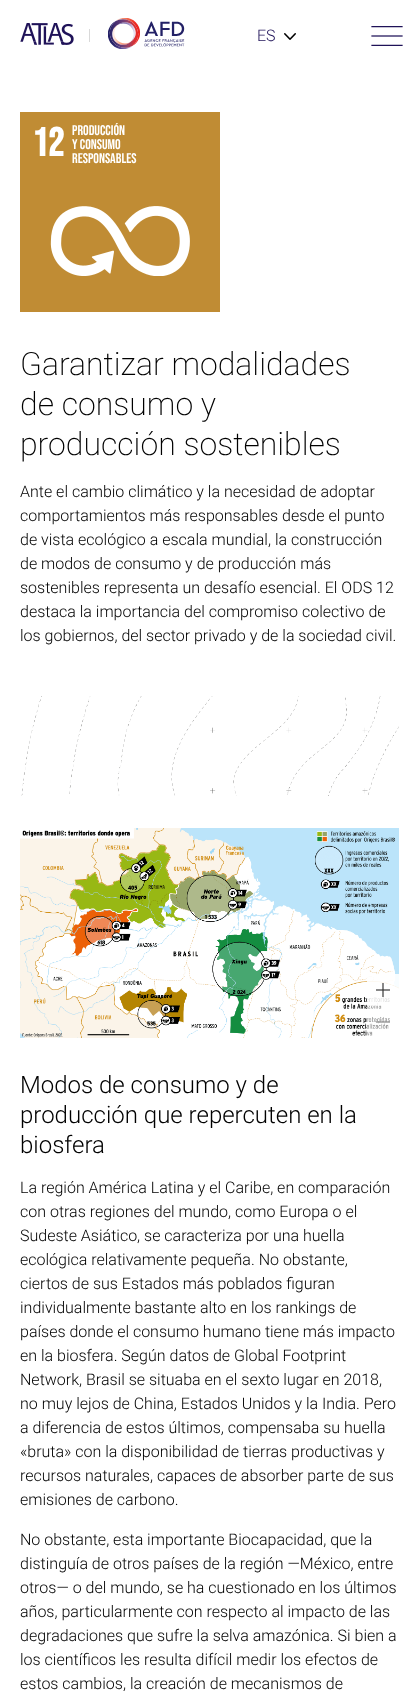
<!DOCTYPE html>
<meta charset="utf-8">
<style>body { margin: 0 } canvas { display: block }</style>
<canvas id="canvas" width="419" height="1691"></canvas>
<script type="module">
  const canvas = document.getElementById("canvas");
  const g = canvas.getContext("2d");
  g.miterLimit = 4;
  g.fontKerning = "normal";
  function drawText(s, x, y, [font, color]) {
    g.font = font;
    g.fillStyle = color;
    g.fillText(s, x, y);
  }
  function fillBox(x, y, w, h, color) {
    g.fillStyle = color;
    g.fillRect(x, y, w, h);
  }
  async function drawPicture(src, x, y, w, h) {
    const img = new Image();
    img.src = src;
    await img.decode();
    g.drawImage(img, x, y, w, h);
  }

  const s1 = ["300 16px Roboto", "#1F1258"];
  const s2 = ["bold 40px Bebas Neue", "#FFFFFF"];
  const s3 = ["14px Bebas Neue", "#FFFFFF"];
  const s4 = ["200 32px Roboto", "#000000"];
  const s5 = ["300 16px Roboto", "#000000"];
  const s6 = ["300 24px Roboto", "#000000"];

  fillBox(0, 0, 419, 1691, "#FFFFFF");
  await drawPicture("pic1.png", 20, 23, 54, 22);
  fillBox(89, 29, 1, 13, "#D9D9D9");
  await drawPicture("pic2.png", 108, 18, 77, 31);
  drawText("ES", 257, 41, s1);
  await drawPicture("pic3.png", 284, 33, 12, 7);
  await drawPicture("pic4.png", 371, 26, 32, 20);
  fillBox(20, 112, 200, 200, "#C08C34");
  drawText("12", 32, 156, s2);
  drawText("PRODUCCIÓN", 72, 135, s3);
  drawText("Y CONSUMO", 72, 149, s3);
  drawText("RESPONSABLES", 72, 163, s3);
  await drawPicture("pic5.png", 50, 206, 140, 70);
  drawText("Garantizar modalidades", 20, 375, s4);
  drawText("de consumo y", 20, 415, s4);
  drawText("producción sostenibles", 20, 455, s4);
  drawText("Ante el cambio climático y la necesidad de adoptar", 20, 497, s5);
  drawText("comportamientos más responsables desde el punto", 20, 521, s5);
  drawText("de vista ecológico a escala mundial, la construcción", 20, 545, s5);
  drawText("de modos de consumo y de producción más", 20, 569, s5);
  drawText("sostenibles representa un desafío esencial. El ODS 12", 20, 593, s5);
  drawText("destaca la importancia del compromiso colectivo de", 20, 617, s5);
  drawText("los gobiernos, del sector privado y de la sociedad civil.", 20, 641, s5);
  await drawPicture("pic6.png", 21, 696, 378, 100);
  await drawPicture("pic7.png", 20, 828, 379, 210);
  fillBox(367, 974, 32, 32, "rgba(255, 255, 255, 0.9)");
  await drawPicture("pic8.png", 376, 983, 14, 14);
  g.fillStyle = "rgba(255, 255, 255, 0.63)";
  g.beginPath();
  g.roundRect(367, 1006, 32, 32, [0, 0, 0, 4]);
  g.fill();
  fillBox(376, 1021, 14, 2, "rgba(153, 153, 153, 0.7)");
  drawText("Modos de consumo y de", 20, 1093, s6);
  drawText("producción que repercuten en la", 20, 1123, s6);
  drawText("biosfera", 20, 1153, s6);
  drawText("La región América Latina y el Caribe, en comparación", 20, 1193, s5);
  drawText("con otras regiones del mundo, como Europa o el", 20, 1217, s5);
  drawText("Sudeste Asiático, se caracteriza por una huella", 20, 1241, s5);
  drawText("ecológica relativamente pequeña. No obstante,", 20, 1265, s5);
  drawText("ciertos de sus Estados más poblados figuran", 20, 1289, s5);
  drawText("individualmente bastante alto en los rankings de", 20, 1313, s5);
  drawText("países donde el consumo humano tiene más impacto", 20, 1337, s5);
  drawText("en la biosfera. Según datos de Global Footprint", 20, 1361, s5);
  drawText("Network, Brasil se situaba en el sexto lugar en 2018,", 20, 1385, s5);
  drawText("no muy lejos de China, Estados Unidos y la India. Pero", 20, 1409, s5);
  drawText("a diferencia de estos últimos, compensaba su huella", 20, 1433, s5);
  drawText("«bruta» con la disponibilidad de tierras productivas y", 20, 1457, s5);
  drawText("recursos naturales, capaces de absorber parte de sus", 20, 1481, s5);
  drawText("emisiones de carbono.", 20, 1505, s5);
  drawText("No obstante, esta importante Biocapacidad, que la", 20, 1545, s5);
  drawText("distinguía de otros países de la región —México, entre", 20, 1569, s5);
  drawText("otros— o del mundo, se ha cuestionado en los últimos", 20, 1593, s5);
  drawText("años, particularmente con respecto al impacto de las", 20, 1617, s5);
  drawText("degradaciones que sufre la selva amazónica. Si bien a", 20, 1641, s5);
  drawText("los científicos les resulta difícil medir los efectos de", 20, 1665, s5);
  drawText("estos cambios, la creación de mecanismos de", 20, 1689, s5);
</script>
